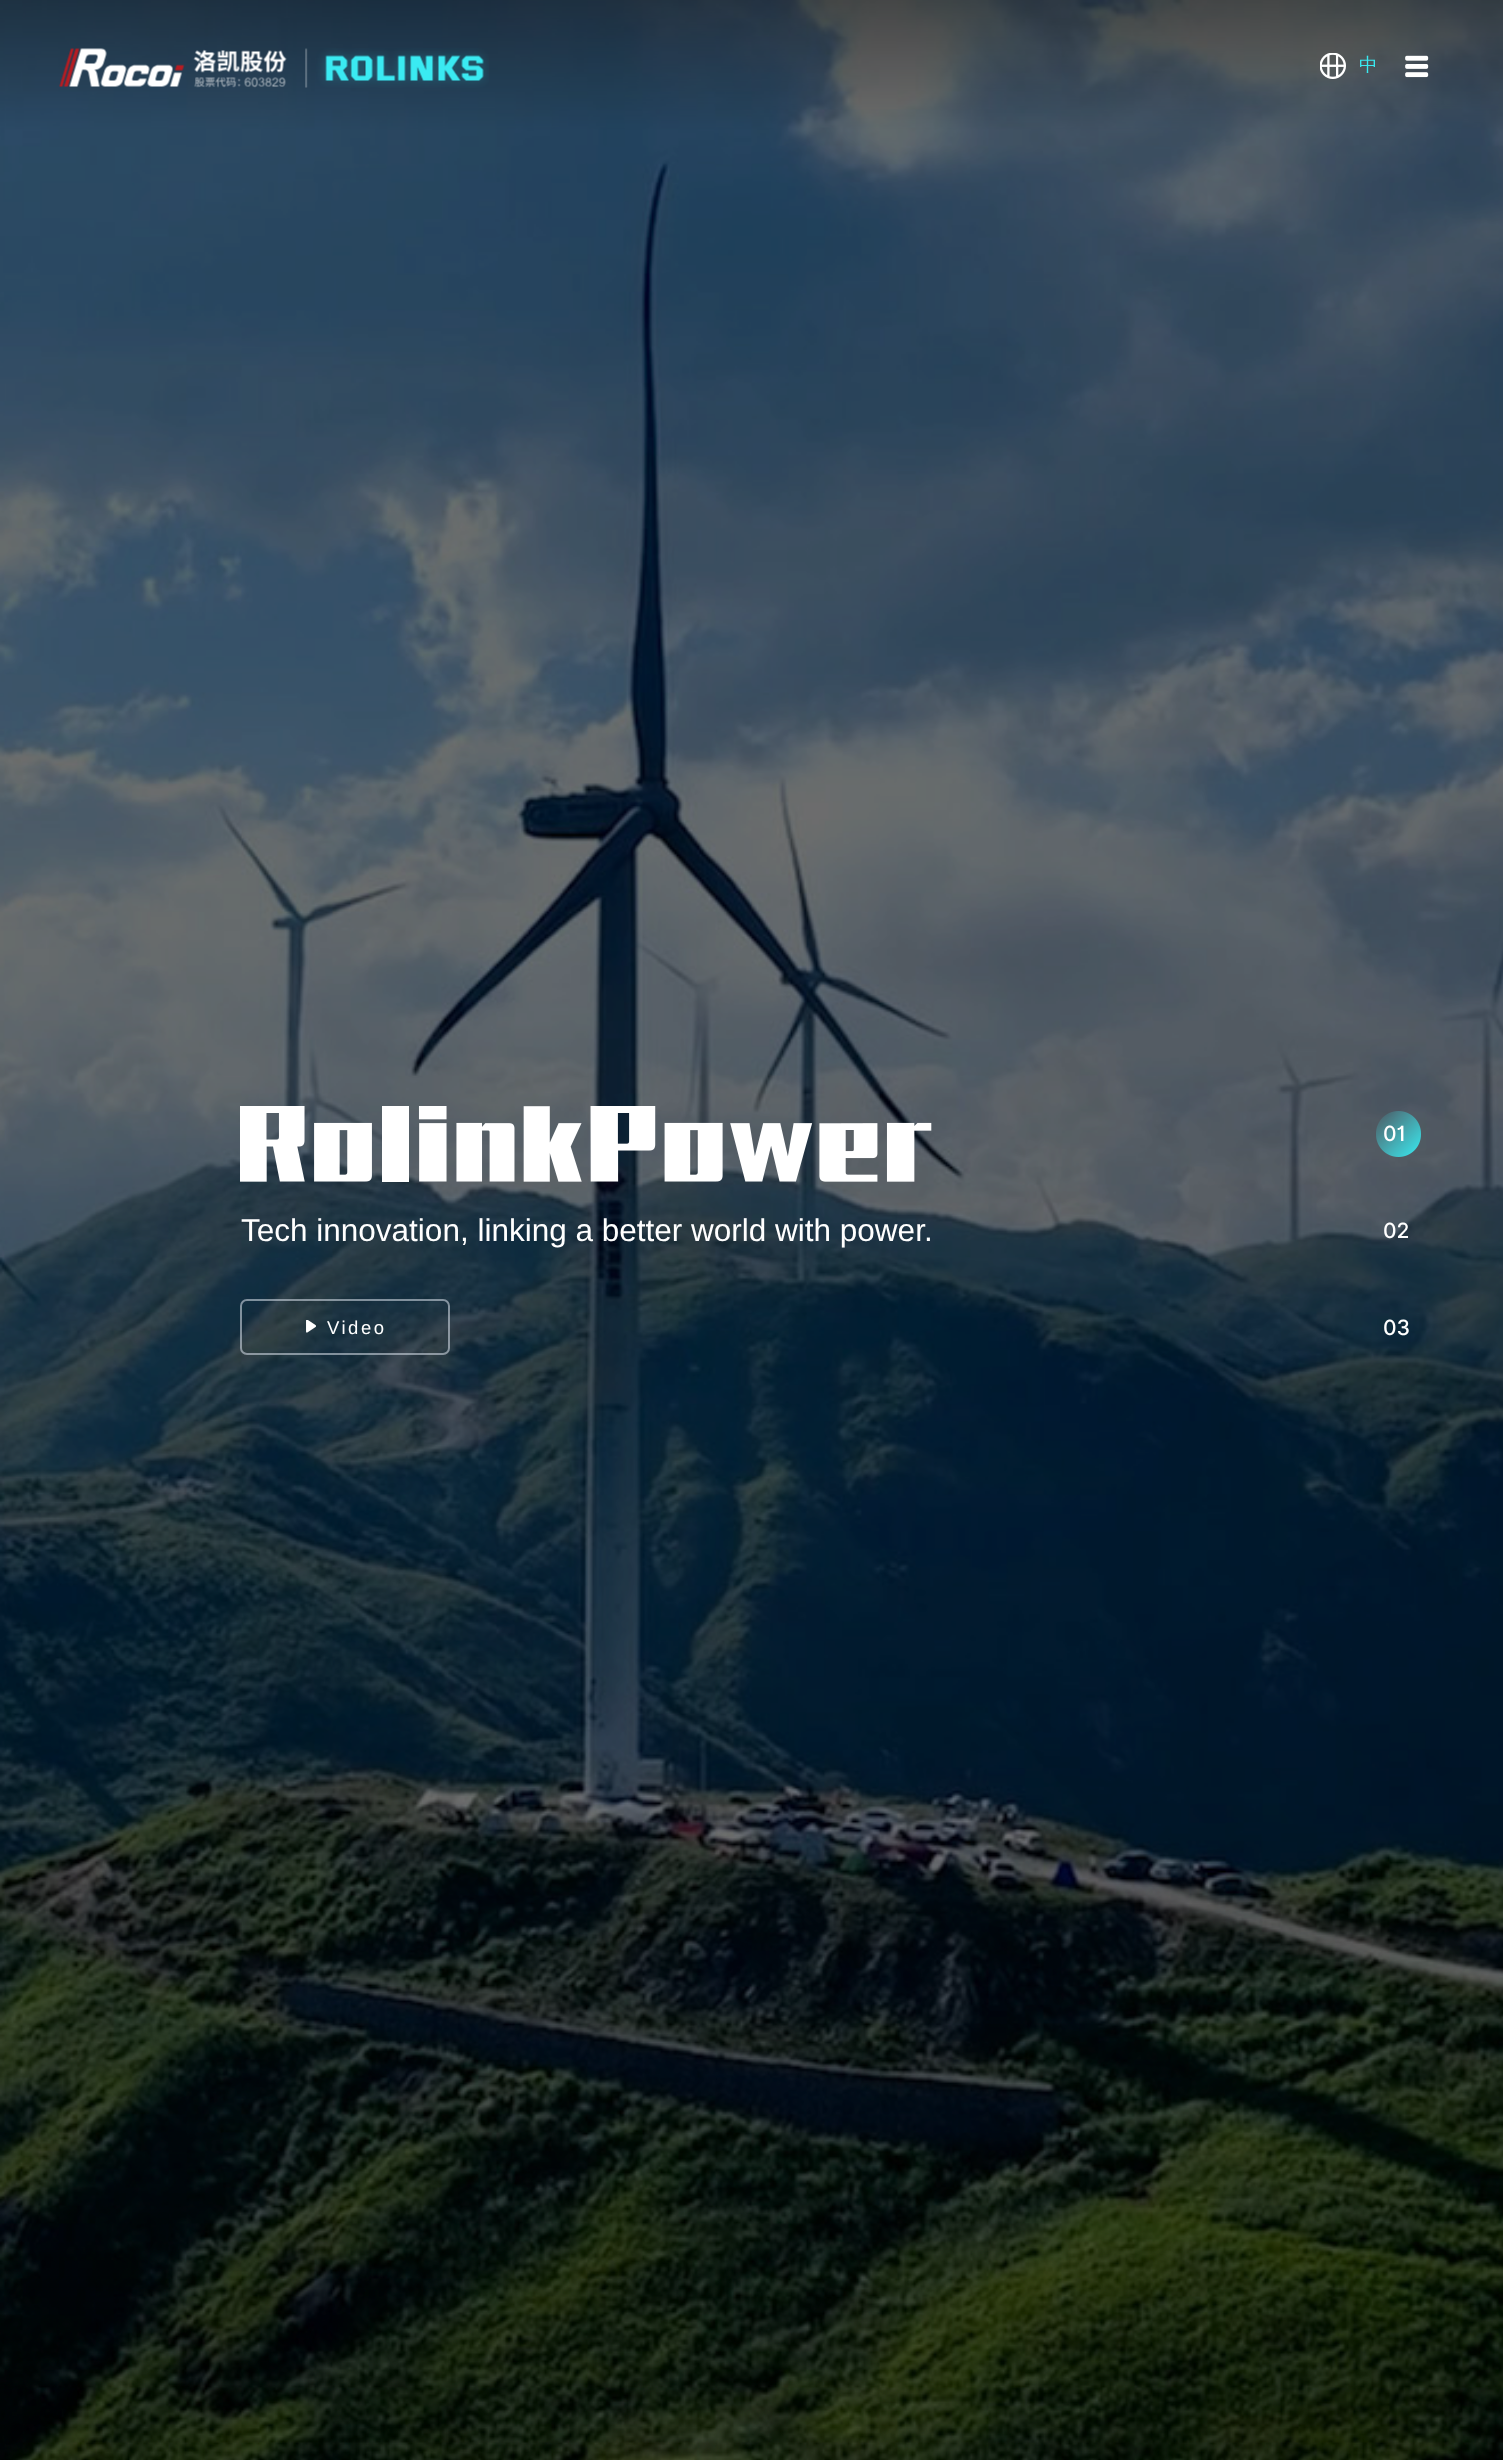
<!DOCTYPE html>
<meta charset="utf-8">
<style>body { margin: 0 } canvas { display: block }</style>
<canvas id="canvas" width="1503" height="2460"></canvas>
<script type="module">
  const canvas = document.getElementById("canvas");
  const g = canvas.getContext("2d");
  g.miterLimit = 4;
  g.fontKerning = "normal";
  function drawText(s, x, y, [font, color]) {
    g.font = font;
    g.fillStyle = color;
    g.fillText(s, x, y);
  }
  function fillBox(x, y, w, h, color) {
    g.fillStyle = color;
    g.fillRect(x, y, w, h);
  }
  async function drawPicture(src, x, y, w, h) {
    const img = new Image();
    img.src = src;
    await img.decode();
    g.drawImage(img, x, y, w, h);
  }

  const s1 = ["500 18.5px WenQuanYi Zen Hei", "#39EAF1"];
  const s2 = ["31.5px Liberation Sans", "#FFFFFF"];
  const s3 = ["18.5px Liberation Sans", "#FFFFFF"];
  const s4 = ["500 21px Inter", "#FFFFFF"];

  fillBox(0, 0, 1503, 2460, "#FFFFFF");
  await drawPicture("pic4.png", 0, 0, 1503, 2460);
  await drawPicture("pic1.png", 59, 48, 430, 40);
  await drawPicture("pic2.png", 1320, 53, 26, 26);
  drawText("中", 1359, 71, s1);
  await drawPicture("pic3.png", 1405, 55, 24, 23);
  await drawPicture("pic5.png", 240, 1106, 692, 76);
  drawText("Tech innovation, linking a better world with power.", 241, 1241, s2);
  g.beginPath();
  g.roundRect(241, 1300, 208, 54, 6);
  g.strokeStyle = "rgba(204, 211, 221, 0.6)";
  g.lineWidth = 2;
  g.stroke();
  await drawPicture("pic6.png", 306, 1320, 10, 13);
  g.letterSpacing = "2.5px";
  drawText("Video", 327, 1334, s3);
  g.letterSpacing = "0px";
  drawText("01", 1383, 1141, s4);
  drawText("02", 1383, 1238, s4);
  drawText("03", 1383, 1335, s4);
</script>
